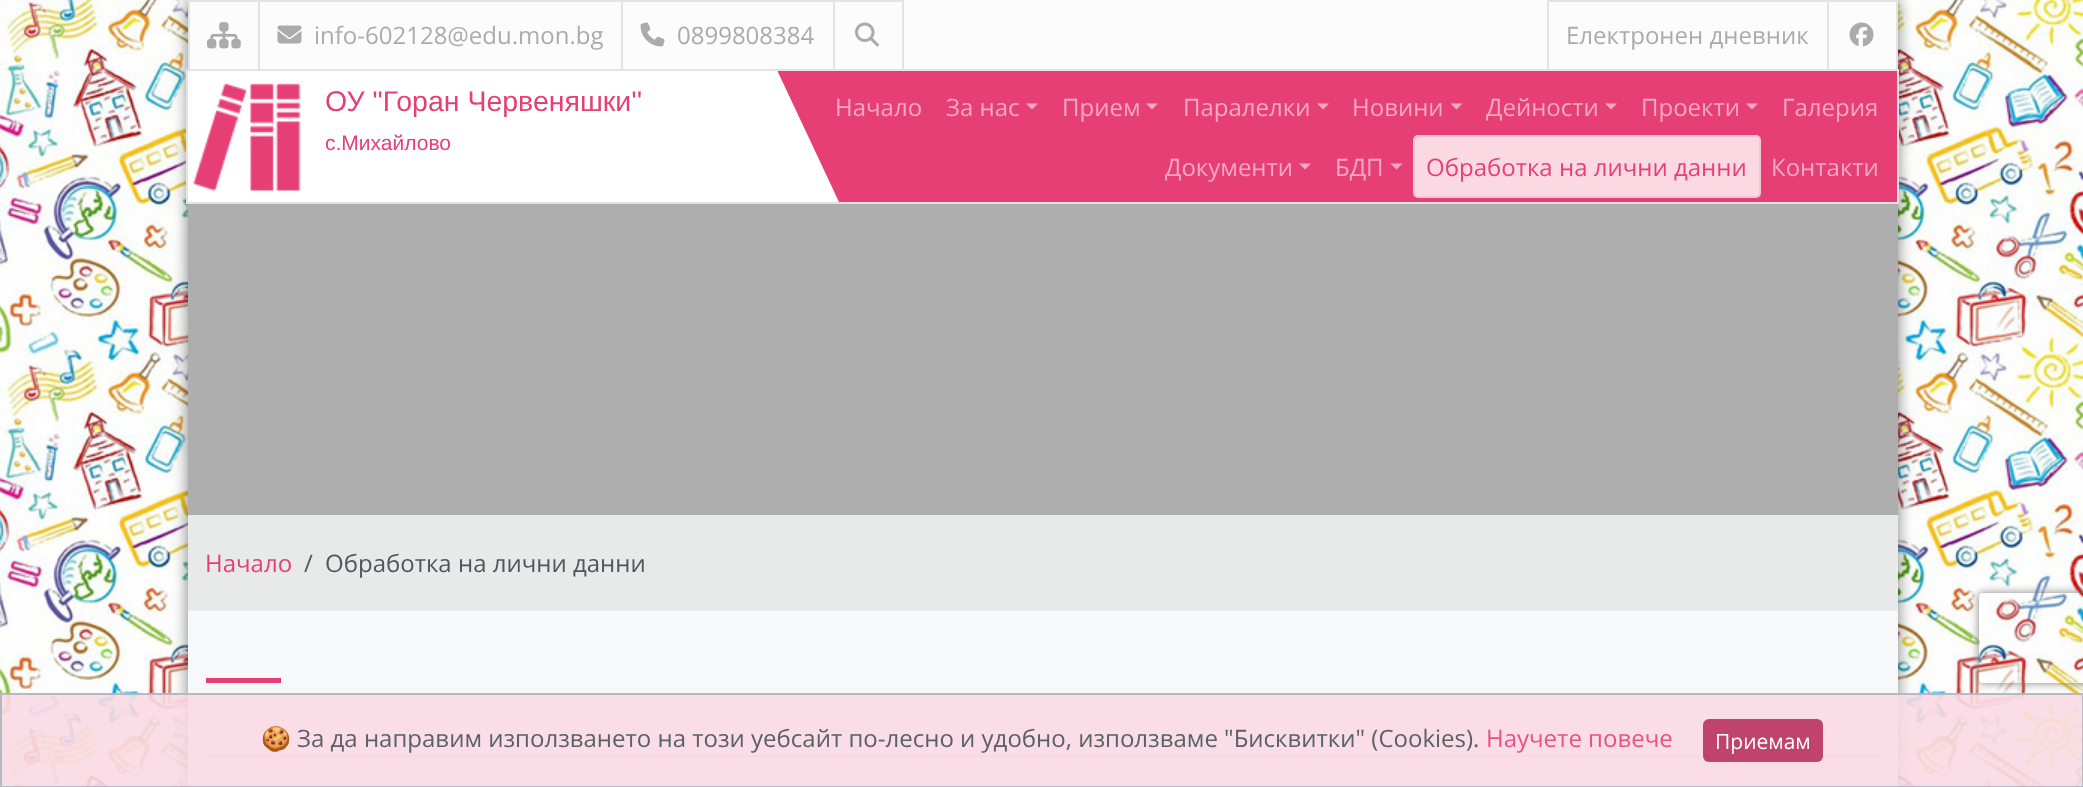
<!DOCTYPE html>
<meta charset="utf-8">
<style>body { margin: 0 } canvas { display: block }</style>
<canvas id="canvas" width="2083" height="787"></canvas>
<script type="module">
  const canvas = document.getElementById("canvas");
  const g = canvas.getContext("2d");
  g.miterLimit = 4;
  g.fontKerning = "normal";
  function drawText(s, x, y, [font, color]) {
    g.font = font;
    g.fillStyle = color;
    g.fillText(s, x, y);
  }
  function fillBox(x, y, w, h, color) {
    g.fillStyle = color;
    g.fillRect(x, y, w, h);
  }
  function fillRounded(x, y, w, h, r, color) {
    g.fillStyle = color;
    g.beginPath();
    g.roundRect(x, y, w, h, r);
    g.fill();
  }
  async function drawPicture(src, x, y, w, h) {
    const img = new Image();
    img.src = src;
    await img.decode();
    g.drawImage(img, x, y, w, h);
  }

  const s1 = ["24px Open Sans", "#ABABAB"];
  const s2 = ["28.5px Liberation Sans", "#E63F75"];
  const s3 = ["21px Liberation Sans", "#E63F75"];
  const s4 = ["24px Open Sans", "#F4A9C1"];
  const s5 = ["24px Open Sans", "#E63F75"];
  const s6 = ["24px Open Sans", "#535659"];
  const s7 = ["24px Noto Color Emoji", "#5A6167"];
  const s8 = ["24px Open Sans", "#5A6167"];
  const s9 = ["24px Open Sans", "#E85282"];
  const s10 = ["21px Open Sans", "#FEFEFF"];

  fillBox(0, 0, 2083, 787, "#FFFFFF");
  await drawPicture("pic1.png", 0, 0, 2083, 787);
  g.fillStyle = "rgba(0, 0, 0, 0.5)";
  g.filter = "blur(7.5px)";
  g.beginPath();
  g.rect(188, 0, 1710, 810);
  g.fill();
  g.filter = "none";
  fillBox(188, 611, 1710, 176, "#F7F8FA");
  fillBox(190, 0, 1706, 69, "#FCFCFC");
  fillBox(833, 0, 70, 2, "#E3E3E3");
  fillBox(833, 0, 2, 71, "#E3E3E3");
  fillBox(621, 0, 213, 2, "#E3E3E3");
  fillBox(621, 0, 2, 71, "#E3E3E3");
  fillBox(258, 0, 365, 2, "#E3E3E3");
  fillBox(258, 0, 2, 71, "#E3E3E3");
  fillBox(188, 0, 72, 2, "#E3E3E3");
  fillBox(188, 0, 2, 71, "#E3E3E3");
  await drawPicture("pic2.png", 207, 22, 34, 27);
  await drawPicture("pic3.png", 277, 25, 25, 19);
  drawText("info-602128@edu.mon.bg", 314, 44, s1);
  await drawPicture("pic4.png", 640, 22, 25, 25);
  drawText("0899808384", 677, 44, s1);
  fillBox(902, 0, 2, 71, "#E3E3E3");
  await drawPicture("pic5.png", 855, 22, 24, 25);
  fillBox(1827, 0, 71, 2, "#E3E3E3");
  fillBox(1827, 0, 2, 71, "#E3E3E3");
  fillBox(1547, 0, 282, 2, "#E3E3E3");
  fillBox(1547, 0, 2, 71, "#E3E3E3");
  drawText("Електронен дневник", 1566, 44, s1);
  fillBox(1896, 0, 2, 71, "#E3E3E3");
  await drawPicture("pic6.png", 1849, 22, 25, 25);
  fillBox(777, 71, 1120, 131, "#E63F75");
  g.fillStyle = "#FFFFFF";
  g.beginPath();
  g.moveTo(207, 70);
  g.lineTo(777, 70);
  g.lineTo(839, 202);
  g.lineTo(269, 202);
  g.closePath();
  g.fill();
  fillBox(188, 71, 81, 131, "#FFFFFF");
  g.strokeStyle = "#E3E3E3";
  g.lineWidth = 2;
  g.strokeRect(187, 70, 1711, 133);
  await drawPicture("pic7.png", 193, 83, 108, 108);
  drawText("ОУ \"Горан Червеняшки''", 325, 111, s2);
  g.save();
  g.beginPath();
  g.rect(326, 131, 477, 51);
  g.clip();
  drawText("с.Михайлово", 325, 150, s3);
  g.restore();
  drawText("Начало", 835, 116, s4);
  drawText("За нас", 946, 116, s4);
  g.beginPath();
  g.moveTo(1026, 103.5);
  g.lineTo(1038, 103.5);
  g.lineTo(1032, 109.5);
  g.closePath();
  g.fill();
  drawText("Прием", 1062, 116, s4);
  g.beginPath();
  g.moveTo(1146, 103.5);
  g.lineTo(1158, 103.5);
  g.lineTo(1152, 109.5);
  g.closePath();
  g.fill();
  drawText("Паралелки", 1183, 116, s4);
  g.beginPath();
  g.moveTo(1317, 103.5);
  g.lineTo(1329, 103.5);
  g.lineTo(1323, 109.5);
  g.closePath();
  g.fill();
  drawText("Новини", 1352, 116, s4);
  g.beginPath();
  g.moveTo(1450.5, 103.5);
  g.lineTo(1462.5, 103.5);
  g.lineTo(1456.5, 109.5);
  g.closePath();
  g.fill();
  drawText("Дейности", 1486, 116, s4);
  g.beginPath();
  g.moveTo(1605, 103.5);
  g.lineTo(1617, 103.5);
  g.lineTo(1611, 109.5);
  g.closePath();
  g.fill();
  drawText("Проекти", 1641, 116, s4);
  g.beginPath();
  g.moveTo(1746, 103.5);
  g.lineTo(1758, 103.5);
  g.lineTo(1752, 109.5);
  g.closePath();
  g.fill();
  drawText("Галерия", 1782, 116, s4);
  drawText("Документи", 1165, 176, s4);
  g.beginPath();
  g.moveTo(1299, 163.5);
  g.lineTo(1311, 163.5);
  g.lineTo(1305, 169.5);
  g.closePath();
  g.fill();
  drawText("БДП", 1335, 176, s4);
  g.beginPath();
  g.moveTo(1390.5, 163.5);
  g.lineTo(1402.5, 163.5);
  g.lineTo(1396.5, 169.5);
  g.closePath();
  g.fill();
  fillRounded(1415, 137, 345, 60, 3, "#FAD9E3");
  g.beginPath();
  g.roundRect(1414, 136, 346, 61, 4);
  g.strokeStyle = "#F5C5D4";
  g.stroke();
  drawText("Обработка на лични данни", 1426, 176, s5);
  drawText("Контакти", 1771, 176, s4);
  fillBox(188, 204, 1710, 311, "#AEAEAE");
  fillBox(188, 515, 1710, 96, "#E8E9E9");
  drawText("Начало", 205, 572, s5);
  drawText("/", 304, 572, s6);
  drawText("Обработка на лични данни", 325, 572, s6);
  fillBox(206, 678, 75, 5, "#E63F75");
  fillBox(206, 755, 1674, 2, "#D7D8D9");
  fillBox(0, 693, 2083, 94, "rgba(250, 217, 227, 0.9)");
  g.strokeStyle = "rgba(173, 181, 189, 0.9)";
  g.strokeRect(1, 694, 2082, 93);
  g.save();
  g.beginPath();
  g.moveTo(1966, 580);
  g.lineTo(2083, 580);
  g.lineTo(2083, 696);
  g.lineTo(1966, 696);
  g.closePath();
  g.moveTo(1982, 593);
  g.lineTo(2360, 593);
  g.bezierCurveTo(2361.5, 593, 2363, 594.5, 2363, 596);
  g.lineTo(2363, 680);
  g.bezierCurveTo(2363, 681.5, 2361.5, 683, 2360, 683);
  g.lineTo(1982, 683);
  g.bezierCurveTo(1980.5, 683, 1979, 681.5, 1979, 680);
  g.lineTo(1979, 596);
  g.bezierCurveTo(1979, 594.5, 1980.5, 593, 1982, 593);
  g.closePath();
  g.clip("evenodd");
  g.fillStyle = "#808080";
  g.filter = "blur(4px)";
  g.beginPath();
  g.roundRect(1979, 593, 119, 90, 3);
  g.fill();
  g.filter = "none";
  g.restore();
  drawText("🍪", 261, 747, s7);
  drawText("За да направим използването на този уебсайт по-лесно и удобно, използваме \"Бисквитки\" (Cookies).", 297, 747, s8);
  drawText("Научете повече", 1486, 747, s9);
  fillRounded(1703, 719, 120, 43, 6, "rgba(184, 50, 94, 0.9)");
  drawText("Приемам", 1715, 749, s10);
</script>
